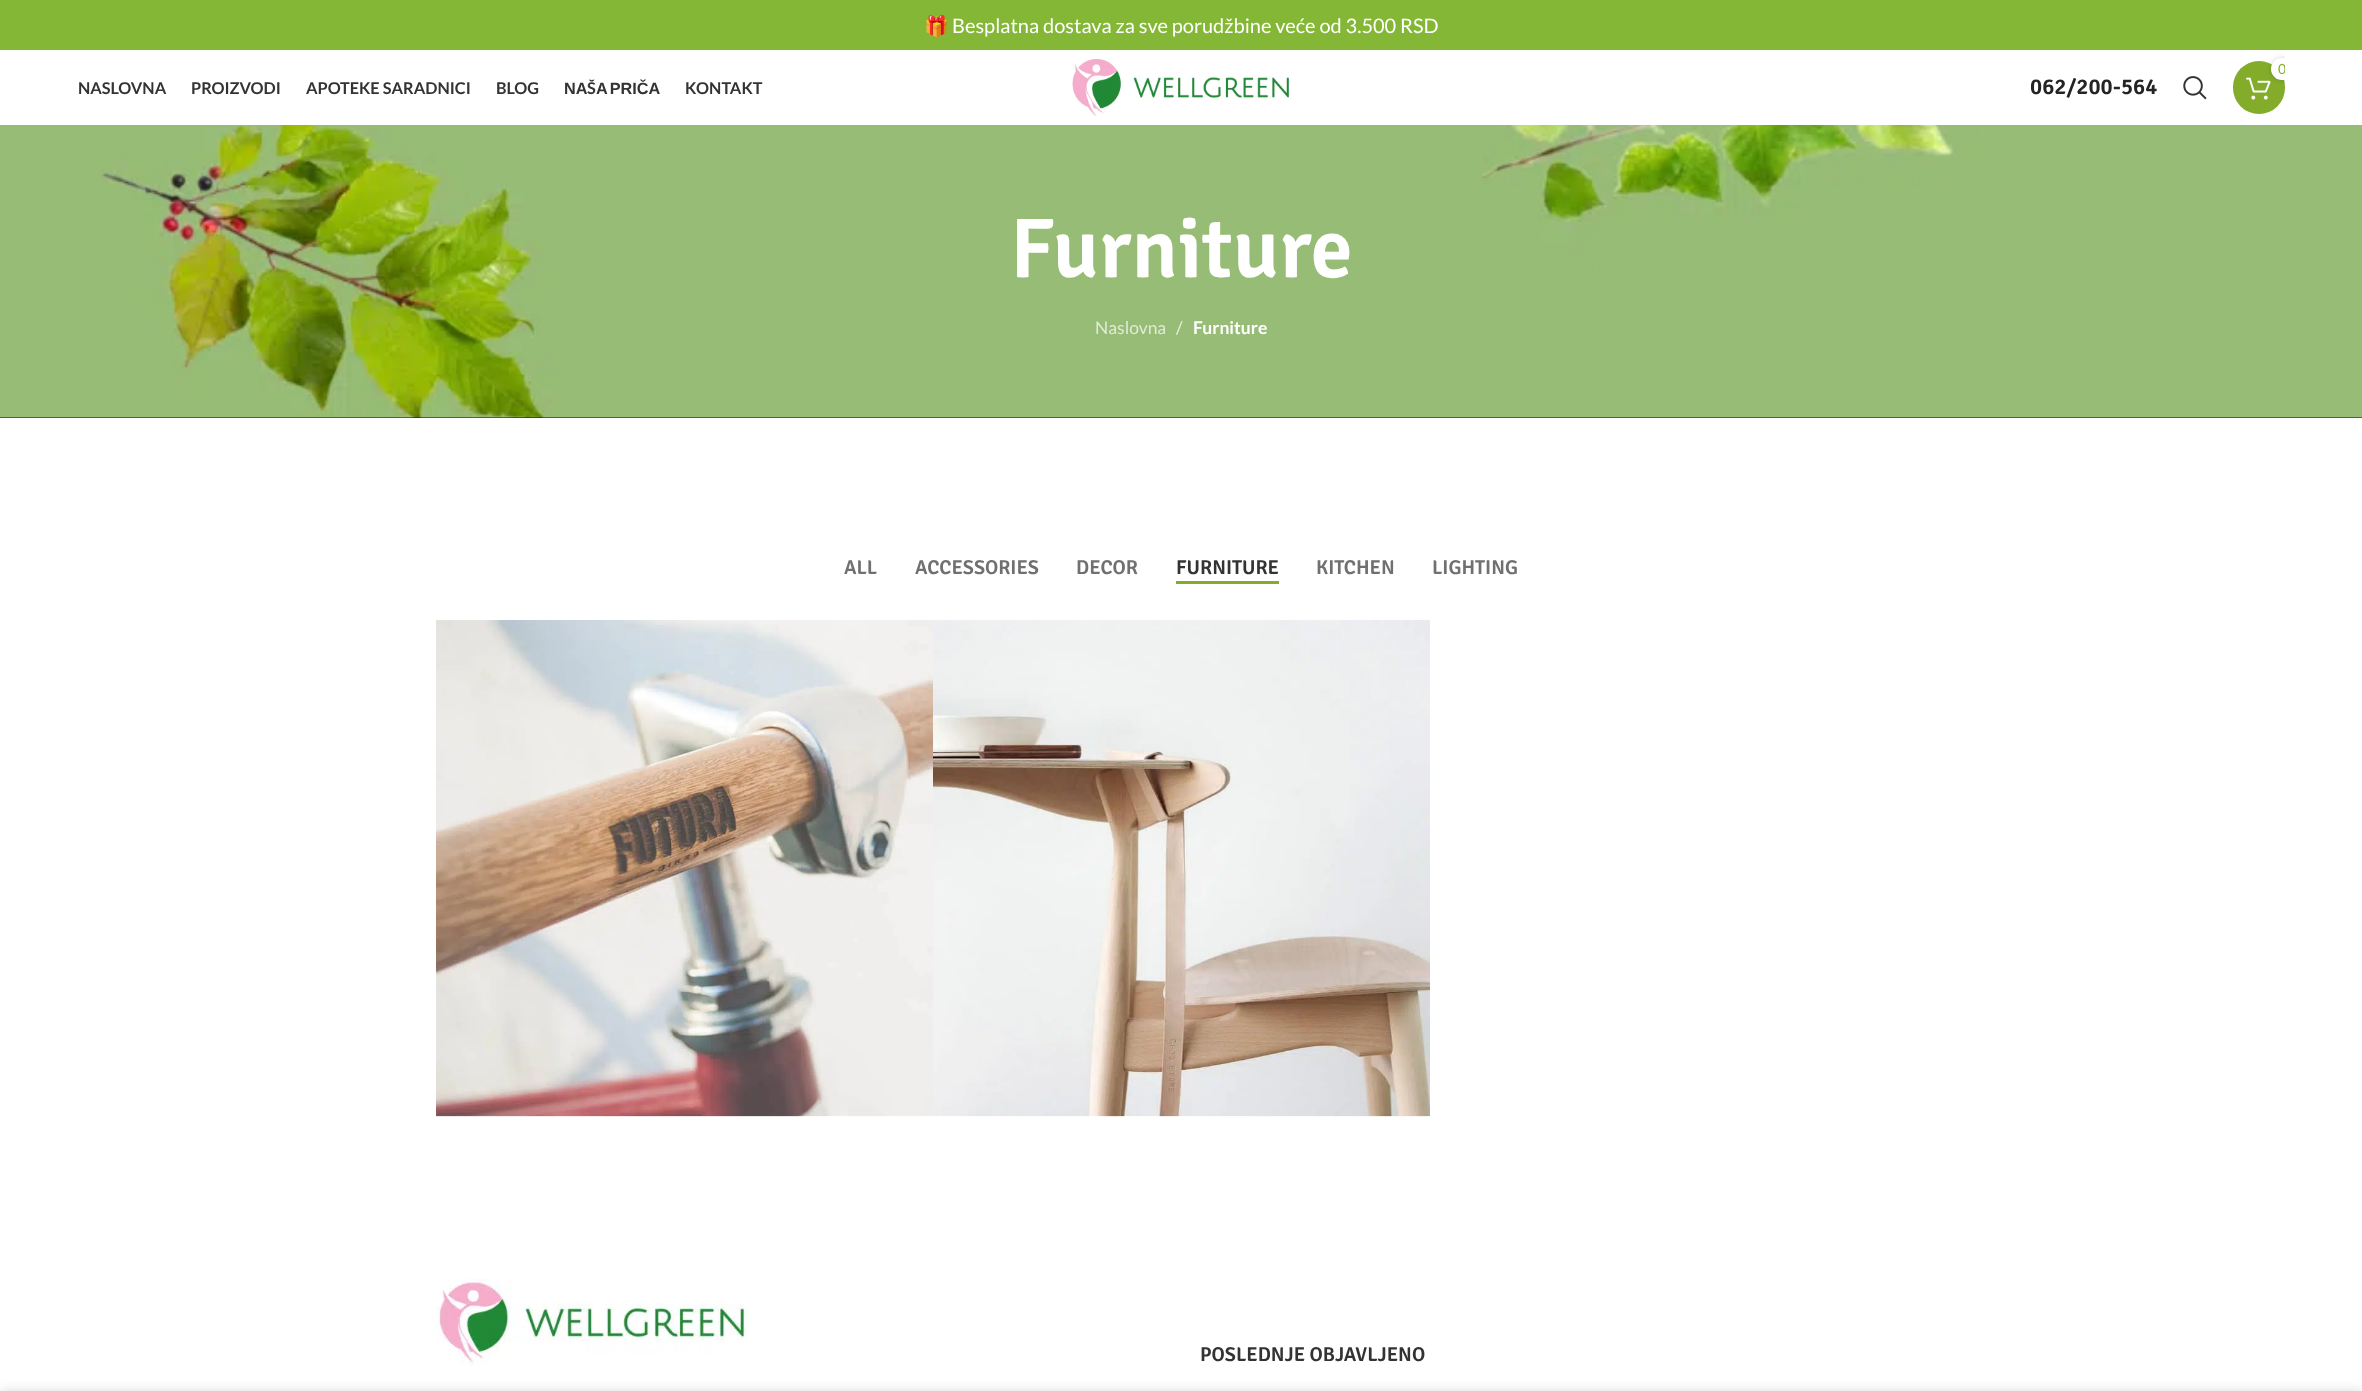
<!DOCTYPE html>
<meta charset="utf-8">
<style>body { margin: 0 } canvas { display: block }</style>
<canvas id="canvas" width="2362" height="1391"></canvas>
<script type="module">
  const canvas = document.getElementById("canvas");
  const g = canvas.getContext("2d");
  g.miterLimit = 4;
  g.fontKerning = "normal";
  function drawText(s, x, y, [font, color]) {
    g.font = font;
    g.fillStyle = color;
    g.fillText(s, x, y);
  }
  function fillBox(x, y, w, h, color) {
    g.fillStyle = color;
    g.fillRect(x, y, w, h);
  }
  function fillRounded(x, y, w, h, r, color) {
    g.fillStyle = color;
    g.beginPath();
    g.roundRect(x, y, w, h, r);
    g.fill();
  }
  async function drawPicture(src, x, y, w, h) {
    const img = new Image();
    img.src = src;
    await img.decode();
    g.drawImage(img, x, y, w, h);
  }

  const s1 = ["20px Noto Color Emoji", "#FFFFFF"];
  const s2 = ["20px Lato", "#FFFFFF"];
  const s3 = ["bold 16.25px Lato", "#333333"];
  const s4 = ["bold 16.25px Liberation Sans", "#333333"];
  const s5 = ["14px Lato", "#83AC2B"];
  const s6 = ["600 22.5px Signika", "#242424"];
  const s7 = ["600 85px Signika", "#FFFFFF"];
  const s8 = ["17.5px Lato", "#E0EBD6"];
  const s9 = ["17.5px Lato", "#EAF2E4"];
  const s10 = ["bold 17.5px Lato", "#FFFFFF"];
  const s11 = ["600 20px Signika", "#707070"];
  const s12 = ["600 20px Signika", "#333333"];

  fillBox(0, 0, 2362, 1391, "#FFFFFF");
  fillBox(0, 0, 2362, 50, "#83B735");
  drawText("🎁", 924, 33, s1);
  drawText("Besplatna dostava za sve porudžbine veće od 3.500 RSD", 952, 33, s2);
  drawText("NASLOVNA", 78, 94, s3);
  drawText("PROIZVODI", 191, 94, s3);
  drawText("APOTEKE SARADNICI", 306, 94, s3);
  drawText("BLOG", 496, 94, s3);
  drawText("NA", 564, 94, s4);
  drawText("Š", 587, 94, s3);
  g.wordSpacing = "-2px";
  drawText("A PRIČA", 596, 94, s4);
  g.wordSpacing = "0px";
  drawText("KONTAKT", 685, 94, s3);
  await drawPicture("pic1.png", 1072, 58, 217, 58);
  fillRounded(2233, 61, 52, 53, 26, "#83AC2B");
  await drawPicture("pic2.png", 2246, 77, 25, 23);
  g.save();
  g.beginPath();
  g.rect(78, 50, 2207, 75);
  g.clip();
  g.fillStyle = "rgba(0, 0, 0, 0.17)";
  g.filter = "blur(2.5px)";
  g.beginPath();
  g.roundRect(2271, 58, 23, 22, 11);
  g.fill();
  g.filter = "none";
  g.restore();
  g.save();
  g.beginPath();
  g.rect(78, 50, 2207, 75);
  g.clip();
  fillRounded(2271, 58, 23, 22, 11, "#FFFFFF");
  drawText("0", 2278, 74, s5);
  g.restore();
  drawText("062/200-564", 2030, 94, s6);
  await drawPicture("pic3.png", 2183, 76, 24, 24);
  fillBox(0, 417, 2362, 1, "#0A0A0A");
  await drawPicture("pic4.png", 0, 125, 2362, 293);
  drawText("Furniture", 1010, 277, s7);
  drawText("Naslovna", 1095, 334, s8);
  drawText("/", 1176, 334, s9);
  drawText("Furniture", 1193, 334, s10);
  drawText("ALL", 844, 574, s11);
  drawText("ACCESSORIES", 915, 574, s11);
  drawText("DECOR", 1076, 574, s11);
  drawText("FURNITURE", 1176, 574, s12);
  fillBox(1176, 581, 103, 3, "#83AC2B");
  drawText("KITCHEN", 1316, 574, s11);
  drawText("LIGHTING", 1432, 574, s11);
  await drawPicture("pic5.png", 436, 620, 497, 497);
  await drawPicture("pic6.png", 933, 620, 497, 497);
  await drawPicture("pic7.png", 436, 1279, 313, 87);
  drawText("POSLEDNJE OBJAVLJENO", 1200, 1361, s12);
  g.fillStyle = "rgba(0, 0, 0, 0.14)";
  g.filter = "blur(5.5px)";
  g.beginPath();
  g.rect(0, 1391, 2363, 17);
  g.fill();
  g.filter = "none";
</script>
